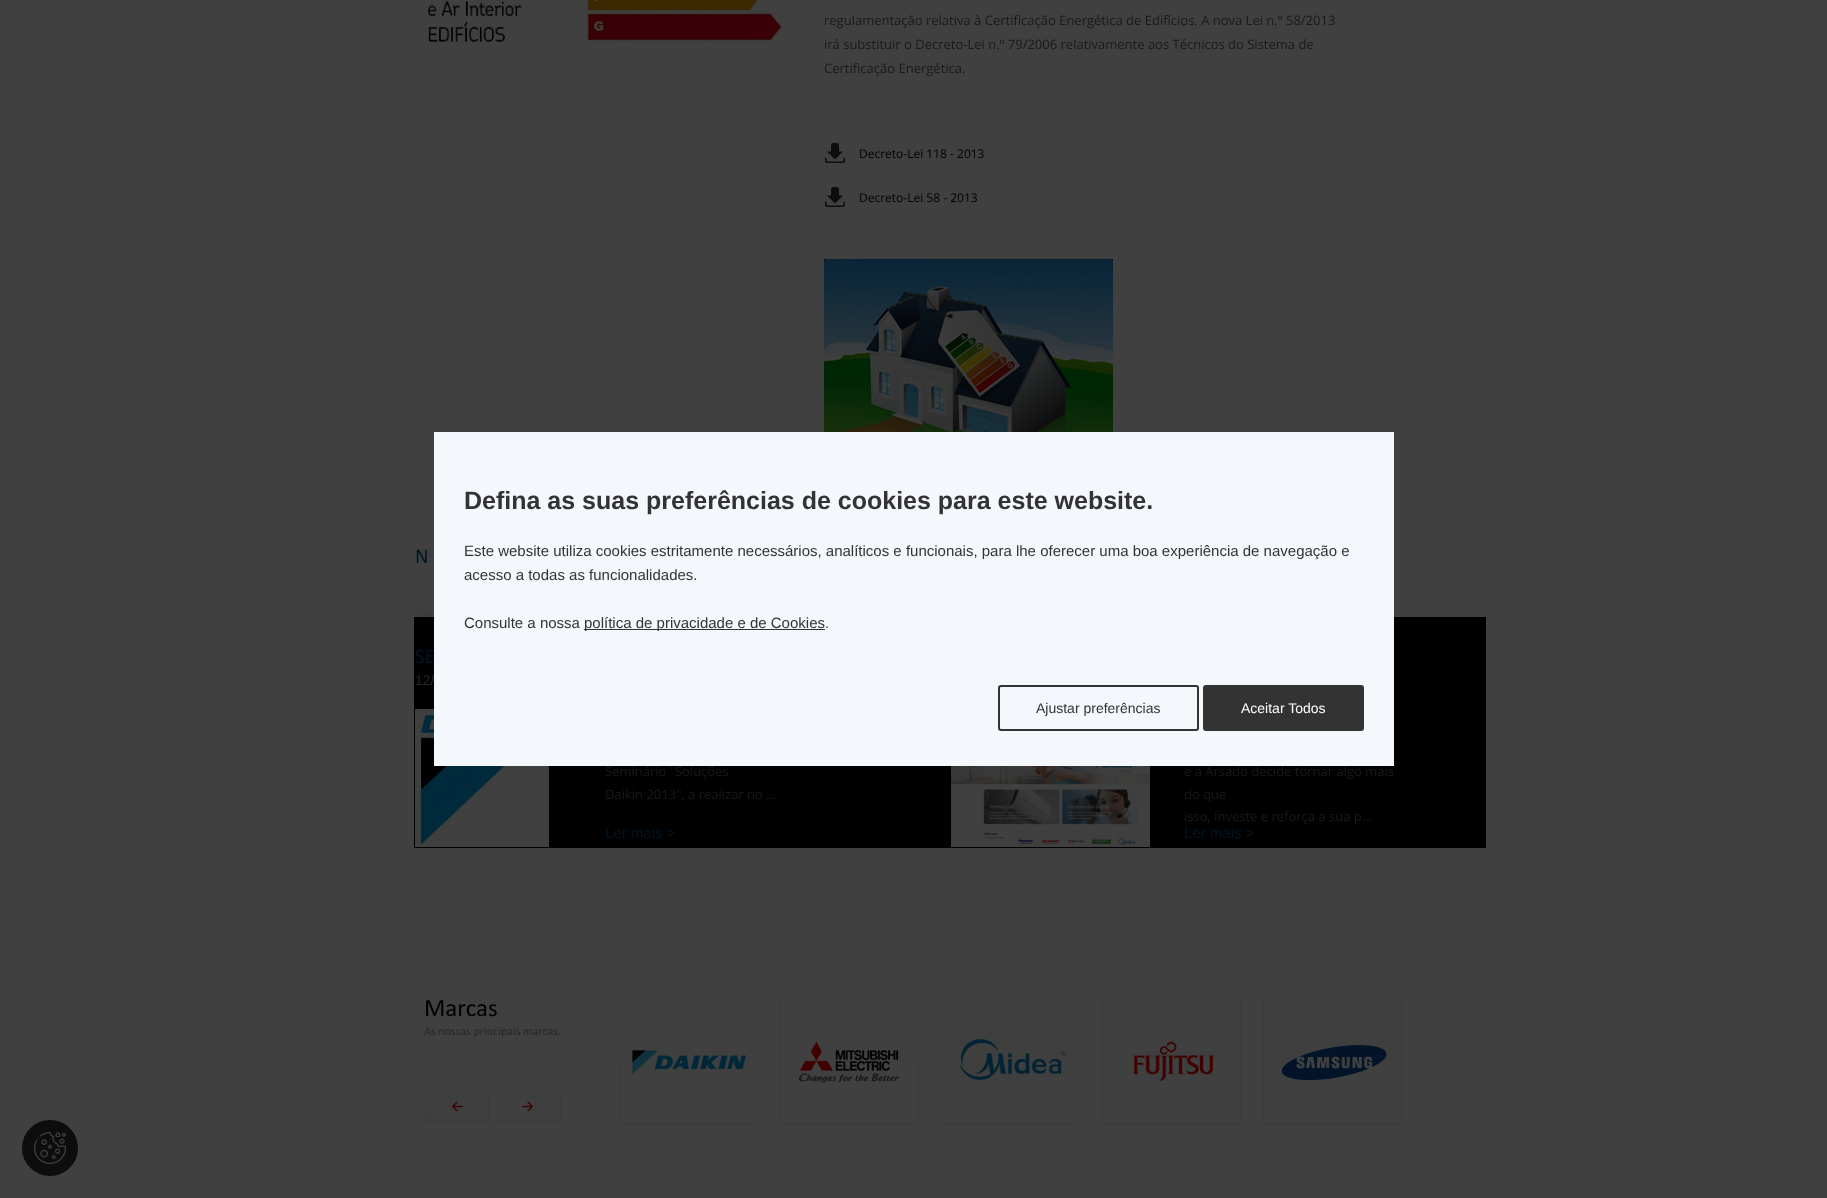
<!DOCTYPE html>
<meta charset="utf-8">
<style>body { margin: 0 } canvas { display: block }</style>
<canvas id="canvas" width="1827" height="1198"></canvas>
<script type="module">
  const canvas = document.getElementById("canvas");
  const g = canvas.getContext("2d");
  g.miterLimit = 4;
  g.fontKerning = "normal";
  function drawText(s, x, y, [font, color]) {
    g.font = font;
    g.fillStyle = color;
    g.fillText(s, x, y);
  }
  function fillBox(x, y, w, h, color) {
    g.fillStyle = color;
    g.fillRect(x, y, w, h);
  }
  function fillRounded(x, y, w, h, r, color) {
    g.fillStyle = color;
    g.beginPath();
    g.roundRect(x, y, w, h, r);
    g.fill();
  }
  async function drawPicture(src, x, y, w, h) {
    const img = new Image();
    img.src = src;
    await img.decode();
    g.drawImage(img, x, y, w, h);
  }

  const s1 = ["13px Open Sans", "#1A1A1A"];
  const s2 = ["12px Open Sans", "#000000"];
  const s3 = ["21px Calibri", "#001524"];
  const s4 = ["14px Liberation Sans", "#272727"];
  const s5 = ["15px Liberation Sans", "#001524"];
  const s6 = ["25px Calibri", "#000000"];
  const s7 = ["12px Calibri", "#272727"];
  const s8 = ["bold 25px Liberation Sans", "#333333"];
  const s9 = ["15px Liberation Sans", "#333333"];
  const s10 = ["14px Liberation Sans", "#333333"];
  const s11 = ["14px Liberation Sans", "#FFFFFF"];

  fillBox(0, 0, 1827, 1198, "#404040");
  await drawPicture("pic1.png", 423, 0, 360, 50);
  drawText("regulamentação relativa à Certificação Energética de Edifícios. A nova Lei n.º 58/2013", 824, 25, s1);
  drawText("irá substituir o Decreto-Lei n.º 79/2006 relativamente aos Técnicos do Sistema de", 824, 49, s1);
  drawText("Certificação Energética.", 824, 73, s1);
  await drawPicture("pic2.png", 825, 143, 20, 20);
  drawText("Decreto-Lei 118 - 2013", 859, 158, s2);
  await drawPicture("pic2.png", 825, 187, 20, 20);
  drawText("Decreto-Lei 58 - 2013", 859, 202, s2);
  await drawPicture("pic3.png", 824, 259, 289, 173);
  drawText("N", 415, 563, s3);
  await drawPicture("pic4.png", 417, 582, 17, 34);
  fillBox(414, 617, 1072, 231, "#000000");
  drawText("SE", 415, 663, s3);
  drawText("12/", 415, 685, s4);
  await drawPicture("pic5.png", 415, 709, 134, 138);
  drawText("Seminário \"Soluções", 605, 776, s1);
  drawText("Daikin 2013\", a realizar no ...", 605, 799, s1);
  drawText("Ler mais >", 605, 838, s5);
  await drawPicture("pic6.png", 951, 766, 199, 81);
  drawText("e a Arsado decide tornar algo mais", 1184, 776, s1);
  drawText("do que", 1184, 799, s1);
  drawText("isso, investe e reforça a sua p...", 1184, 821, s1);
  drawText("Ler mais >", 1184, 838, s5);
  await drawPicture("pic7.png", 424, 1089, 65, 34);
  await drawPicture("pic8.png", 496, 1089, 65, 34);
  await drawPicture("pic9.png", 618, 996, 141, 129);
  await drawPicture("pic10.png", 632, 1050, 115, 24);
  await drawPicture("pic9.png", 779, 996, 141, 129);
  await drawPicture("pic11.png", 799, 1041, 100, 42);
  await drawPicture("pic9.png", 940, 996, 141, 129);
  await drawPicture("pic12.png", 956, 1035, 113, 49);
  await drawPicture("pic9.png", 1101, 996, 141, 129);
  await drawPicture("pic13.png", 1128, 1041, 86, 41);
  await drawPicture("pic9.png", 1262, 996, 141, 129);
  await drawPicture("pic14.png", 1281, 1042, 106, 38);
  drawText("Marcas", 424, 1016, s6);
  drawText("As nossas principais marcas.", 424, 1035, s7);
  fillBox(434, 432, 960, 334, "#F4F7FC");
  drawText("Defina as suas preferências de cookies para este website.", 464, 509, s8);
  drawText("Este website utiliza cookies estritamente necessários, analíticos e funcionais, para lhe oferecer uma boa experiência de navegação e", 464, 556, s9);
  drawText("acesso a todas as funcionalidades.", 464, 580, s9);
  drawText("Consulte a nossa", 464, 628, s9);
  fillBox(584, 629, 241, 1, "#333333");
  drawText("política de privacidade e de Cookies.", 584, 628, s9);
  g.beginPath();
  g.roundRect(999, 686, 199, 44, 2);
  g.strokeStyle = "#333333";
  g.lineWidth = 2;
  g.stroke();
  drawText("Ajustar preferências", 1036, 713, s10);
  fillRounded(1203, 685, 161, 46, 3, "#333333");
  drawText("Aceitar Todos", 1241, 713, s11);
  g.fillStyle = "#0D0D0D";
  g.beginPath();
  g.arc(50, 1148, 29, 0, Math.PI * 2);
  g.fill();
  g.strokeStyle = "#404040";
  g.stroke();
  await drawPicture("pic15.png", 34, 1132, 32, 32);
</script>
